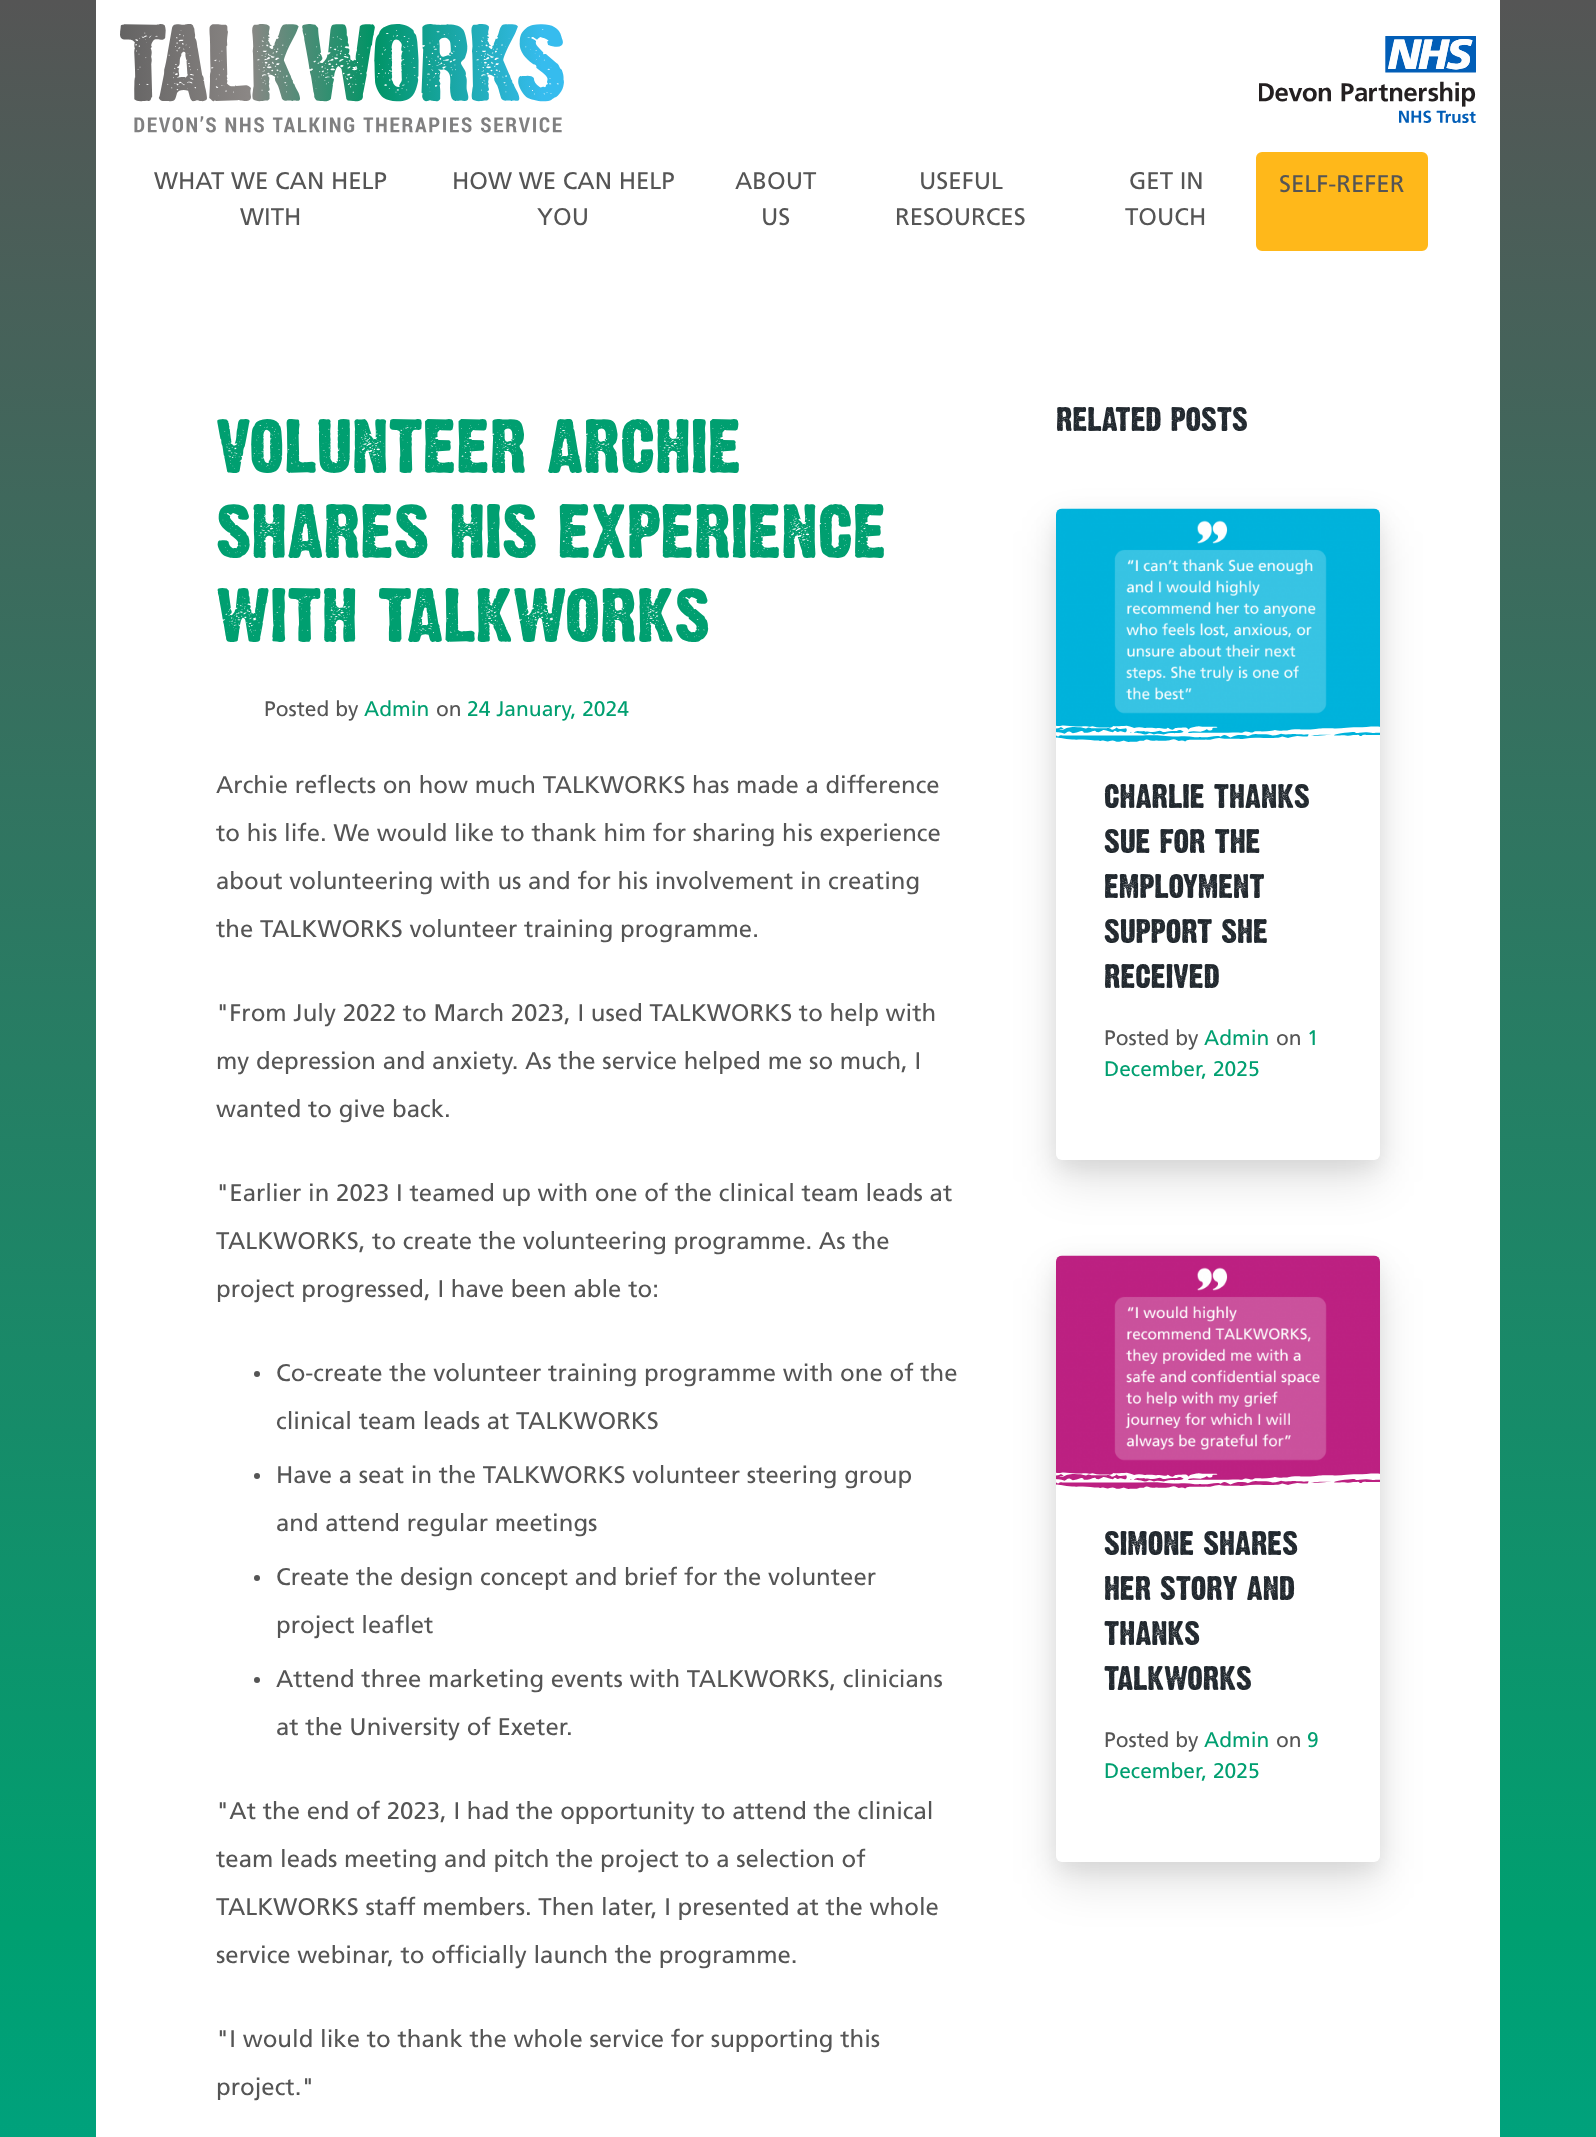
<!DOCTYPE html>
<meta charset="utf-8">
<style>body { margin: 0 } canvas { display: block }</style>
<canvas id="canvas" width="1596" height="2137"></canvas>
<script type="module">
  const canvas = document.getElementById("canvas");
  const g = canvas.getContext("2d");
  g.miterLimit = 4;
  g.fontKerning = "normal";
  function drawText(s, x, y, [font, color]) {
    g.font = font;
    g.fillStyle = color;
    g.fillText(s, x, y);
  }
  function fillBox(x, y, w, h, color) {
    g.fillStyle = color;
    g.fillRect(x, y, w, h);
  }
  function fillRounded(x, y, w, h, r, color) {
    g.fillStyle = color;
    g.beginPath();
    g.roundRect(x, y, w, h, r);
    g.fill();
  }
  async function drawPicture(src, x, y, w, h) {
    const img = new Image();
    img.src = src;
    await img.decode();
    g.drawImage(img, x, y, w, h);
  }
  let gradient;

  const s1 = ["24px Frutiger", "#555555"];
  const s2 = ["67.5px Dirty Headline", "#009F70"];
  const s3 = ["21px Frutiger", "#555555"];
  const s4 = ["21px Frutiger", "#009F70"];
  const s5 = ["30px Dirty Headline", "#22292F"];

  fillBox(0, 0, 1596, 2137, "#FFFFFF");
  gradient = g.createLinearGradient(798, 0, 798, 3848);
  gradient.addColorStop(0, "#555555");
  gradient.addColorStop(0.5, "#009F70");
  gradient.addColorStop(1, "#02B3DB");
  g.fillStyle = gradient;
  g.fillRect(0, 0, 1596, 2137);
  fillBox(96, 0, 1404, 2137, "#FFFFFF");
  await drawPicture("pic1.png", 120, 24, 444, 109);
  await drawPicture("pic2.png", 1259, 36, 217, 87);
  drawText("WHAT WE CAN HELP", 154, 189, s1);
  drawText("WITH", 240, 225, s1);
  drawText("HOW WE CAN HELP", 452, 189, s1);
  drawText("YOU", 537, 225, s1);
  drawText("ABOUT", 735, 189, s1);
  drawText("US", 761, 225, s1);
  drawText("USEFUL", 919, 189, s1);
  drawText("RESOURCES", 895, 225, s1);
  drawText("GET IN", 1129, 189, s1);
  drawText("TOUCH", 1125, 225, s1);
  g.fillStyle = "#FFB81A";
  g.beginPath();
  g.roundRect(1257.5, 153.5, 169, 96, 4.5);
  g.fill();
  g.strokeStyle = "#FFB81A";
  g.lineWidth = 3;
  g.stroke();
  drawText("SELF-REFER", 1279, 192, s1);
  drawText("VOLUNTEER ARCHIE", 216, 473, s2);
  drawText("SHARES HIS EXPERIENCE", 216, 558, s2);
  drawText("WITH TALKWORKS", 216, 642, s2);
  drawText("Posted by", 264, 716, s3);
  drawText("Admin", 364, 716, s4);
  drawText("on", 436, 716, s3);
  drawText("24 January, 2024", 467, 716, s4);
  drawText("Archie reflects on how much TALKWORKS has made a difference", 216, 793, s1);
  drawText("to his life. We would like to thank him for sharing his experience", 216, 841, s1);
  drawText("about volunteering with us and for his involvement in creating", 216, 889, s1);
  drawText("the TALKWORKS volunteer training programme.", 216, 937, s1);
  drawText("\"From July 2022 to March 2023, I used TALKWORKS to help with", 216, 1021, s1);
  drawText("my depression and anxiety. As the service helped me so much, I", 216, 1069, s1);
  drawText("wanted to give back.", 216, 1117, s1);
  drawText("\"Earlier in 2023 I teamed up with one of the clinical team leads at", 216, 1201, s1);
  drawText("TALKWORKS, to create the volunteering programme. As the", 216, 1249, s1);
  drawText("project progressed, I have been able to:", 216, 1297, s1);
  g.beginPath();
  g.arc(257, 1374, 3, 0, Math.PI * 2);
  g.fill();
  drawText("Co-create the volunteer training programme with one of the", 276, 1381, s1);
  drawText("clinical team leads at TALKWORKS", 276, 1429, s1);
  g.beginPath();
  g.arc(257, 1476, 3, 0, Math.PI * 2);
  g.fill();
  drawText("Have a seat in the TALKWORKS volunteer steering group", 276, 1483, s1);
  drawText("and attend regular meetings", 276, 1531, s1);
  g.beginPath();
  g.arc(257, 1578, 3, 0, Math.PI * 2);
  g.fill();
  drawText("Create the design concept and brief for the volunteer", 276, 1585, s1);
  drawText("project leaflet", 276, 1633, s1);
  g.beginPath();
  g.arc(257, 1680, 3, 0, Math.PI * 2);
  g.fill();
  drawText("Attend three marketing events with TALKWORKS, clinicians", 276, 1687, s1);
  drawText("at the University of Exeter.", 276, 1735, s1);
  drawText("\"At the end of 2023, I had the opportunity to attend the clinical", 216, 1819, s1);
  drawText("team leads meeting and pitch the project to a selection of", 216, 1867, s1);
  drawText("TALKWORKS staff members. Then later, I presented at the whole", 216, 1915, s1);
  drawText("service webinar, to officially launch the programme.", 216, 1963, s1);
  drawText("\"I would like to thank the whole service for supporting this", 216, 2047, s1);
  drawText("project.\"", 216, 2095, s1);
  drawText("RELATED POSTS", 1056, 431, s5);
  g.fillStyle = "rgba(0, 0, 0, 0.08)";
  g.filter = "blur(11px)";
  g.beginPath();
  g.roundRect(1056, 516, 324, 651, 6);
  g.fill();
  g.filter = "none";
  g.fillStyle = "rgba(0, 0, 0, 0.11)";
  g.filter = "blur(22.5px)";
  g.beginPath();
  g.roundRect(1056, 531, 324, 651, 6);
  g.fill();
  g.filter = "none";
  fillRounded(1056, 509, 324, 651, 6, "#FFFFFF");
  await drawPicture("pic3.png", 1056, 508, 324, 234);
  await drawPicture("pic4.png", 1056, 725, 324, 27);
  drawText("CHARLIE THANKS", 1104, 808, s5);
  drawText("SUE FOR THE", 1104, 853, s5);
  drawText("EMPLOYMENT", 1104, 898, s5);
  drawText("SUPPORT SHE", 1104, 943, s5);
  drawText("RECEIVED", 1104, 988, s5);
  drawText("Posted by", 1104, 1045, s3);
  drawText("Admin", 1204, 1045, s4);
  drawText("on", 1276, 1045, s3);
  drawText("1", 1307, 1045, s4);
  drawText("December, 2025", 1104, 1076, s4);
  g.fillStyle = "rgba(0, 0, 0, 0.08)";
  g.filter = "blur(11px)";
  g.beginPath();
  g.roundRect(1056, 1263, 324, 606, 6);
  g.fill();
  g.filter = "none";
  g.fillStyle = "rgba(0, 0, 0, 0.11)";
  g.filter = "blur(22.5px)";
  g.beginPath();
  g.roundRect(1056, 1278, 324, 606, 6);
  g.fill();
  g.filter = "none";
  fillRounded(1056, 1256, 324, 606, 6, "#FFFFFF");
  await drawPicture("pic5.png", 1056, 1255, 324, 234);
  await drawPicture("pic6.png", 1056, 1472, 324, 27);
  drawText("SIMONE SHARES", 1104, 1555, s5);
  drawText("HER STORY AND", 1104, 1600, s5);
  drawText("THANKS", 1104, 1645, s5);
  drawText("TALKWORKS", 1104, 1690, s5);
  drawText("Posted by", 1104, 1747, s3);
  drawText("Admin", 1204, 1747, s4);
  drawText("on", 1276, 1747, s3);
  drawText("9", 1307, 1747, s4);
  drawText("December, 2025", 1104, 1778, s4);
</script>
